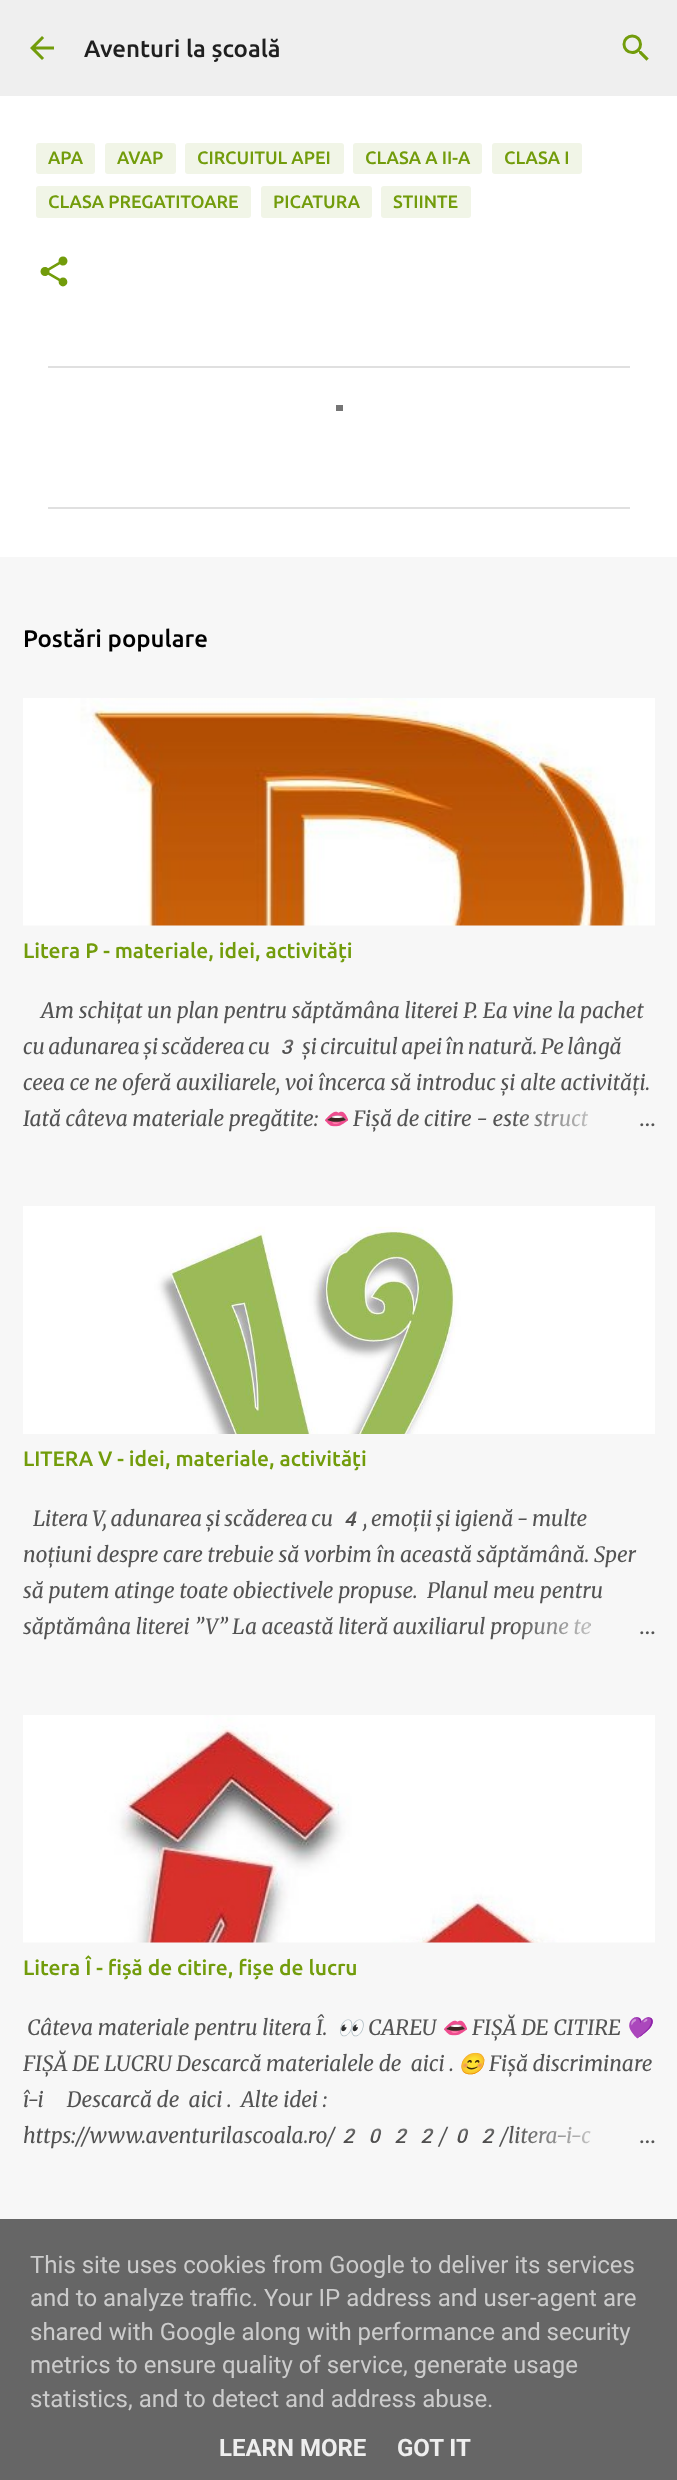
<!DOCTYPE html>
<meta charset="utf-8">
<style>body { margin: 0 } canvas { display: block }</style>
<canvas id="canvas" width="677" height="2480"></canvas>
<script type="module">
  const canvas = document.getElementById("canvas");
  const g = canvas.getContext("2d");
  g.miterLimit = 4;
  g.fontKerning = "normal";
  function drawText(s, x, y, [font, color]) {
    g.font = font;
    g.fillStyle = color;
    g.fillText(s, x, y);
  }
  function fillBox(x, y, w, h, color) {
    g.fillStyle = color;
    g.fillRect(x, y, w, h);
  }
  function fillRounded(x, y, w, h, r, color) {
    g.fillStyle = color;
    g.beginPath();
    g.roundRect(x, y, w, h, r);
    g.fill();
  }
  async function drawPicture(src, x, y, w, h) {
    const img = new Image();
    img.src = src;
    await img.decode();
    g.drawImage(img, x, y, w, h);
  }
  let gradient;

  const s1 = ["500 24px Ubuntu", "#1F1F1F"];
  const s2 = ["500 18px Ubuntu", "#729C0B"];
  const s3 = ["500 24px Ubuntu", "#000000"];
  const s4 = ["500 21px Ubuntu", "#729C0B"];
  const s5 = ["italic 21px Merriweather", "#535353"];
  const s6 = ["italic 21px Noto Color Emoji", "#535353"];
  const s7 = ["21px Merriweather", "#535353"];
  const s8 = ["24px Roboto", "#CCCCCC"];
  const s9 = ["bold 24px Roboto", "#EEEEEE"];

  fillBox(0, 0, 677, 2480, "#F7F7F7");
  fillBox(0, 0, 677, 96, "#EFEFEF");
  await drawPicture("pic1.png", 30, 36, 24, 24);
  drawText("Aventuri la școală", 84, 57, s1);
  await drawPicture("pic2.png", 622, 34, 27, 27);
  fillBox(0, 96, 677, 461, "#FFFFFF");
  fillRounded(36, 143, 59, 31, 3, "#F1F5E7");
  drawText("APA", 48, 164, s2);
  fillRounded(105, 143, 71, 31, 3, "#F1F5E7");
  drawText("AVAP", 117, 164, s2);
  fillRounded(185, 143, 159, 31, 3, "#F1F5E7");
  drawText("CIRCUITUL APEI", 197, 164, s2);
  fillRounded(353, 143, 129, 31, 3, "#F1F5E7");
  drawText("CLASA A II-A", 365, 164, s2);
  fillRounded(492, 143, 90, 31, 3, "#F1F5E7");
  drawText("CLASA I", 504, 164, s2);
  fillRounded(36, 186, 215, 32, 3, "#F1F5E7");
  drawText("CLASA PREGATITOARE", 48, 208, s2);
  fillRounded(261, 186, 111, 32, 3, "#F1F5E7");
  drawText("PICATURA", 273, 208, s2);
  fillRounded(381, 186, 90, 32, 3, "#F1F5E7");
  drawText("STIINTE", 393, 208, s2);
  await drawPicture("pic3.png", 40, 256, 28, 31);
  fillBox(48, 366, 582, 2, "#E0E0E0");
  fillBox(48, 507, 582, 2, "#E0E0E0");
  drawText("Postări populare", 23, 647, s3);
  await drawPicture("pic4.png", 23, 698, 632, 228);
  drawText("Litera P - materiale, idei, activități", 23, 958, s4);
  drawText("Am schițat un plan pentru săptămâna literei P. Ea vine la pachet", 41, 1018, s5);
  g.wordSpacing = "-1.25px";
  drawText("cu adunarea și scăderea cu", 23, 1054, s5);
  g.wordSpacing = "0px";
  drawText("3", 273, 1054, s6);
  g.wordSpacing = "-1.25px";
  drawText("și circuitul apei în natură. Pe lângă", 302, 1054, s5);
  g.wordSpacing = "0px";
  drawText("ceea ce ne oferă auxiliarele, voi încerca să introduc și alte activități.", 23, 1090, s5);
  drawText("Iată câteva materiale pregătite:", 23, 1126, s5);
  drawText("👄", 322, 1126, s6);
  drawText("Fișă de citire - este struct", 353, 1126, s5);
  gradient = g.createLinearGradient(656, 1119, 512, 1119);
  gradient.addColorStop(0, "#F7F7F7");
  gradient.addColorStop(0.2, "#F7F7F7");
  gradient.addColorStop(1, "rgba(247, 247, 247, 0)");
  g.fillStyle = gradient;
  g.fillRect(514, 1111, 75, 16);
  drawText("…", 639, 1126, s7);
  await drawPicture("pic5.png", 23, 1206, 632, 228);
  drawText("LITERA V - idei, materiale, activități", 23, 1466, s4);
  g.wordSpacing = "-1px";
  drawText("Litera V, adunarea și scăderea cu", 33, 1526, s5);
  g.wordSpacing = "0px";
  drawText("4", 337, 1526, s6);
  g.wordSpacing = "-1px";
  drawText(", emoții și igienă - multe", 363, 1526, s5);
  g.wordSpacing = "0px";
  drawText("noțiuni despre care trebuie să vorbim în această săptămână. Sper", 23, 1562, s5);
  drawText("să putem atinge toate obiectivele propuse.  Planul meu pentru", 23, 1598, s5);
  drawText("săptămâna literei ”V” La această literă auxiliarul propune te", 23, 1634, s5);
  gradient = g.createLinearGradient(656, 1628, 512, 1628);
  gradient.addColorStop(0, "#F7F7F7");
  gradient.addColorStop(0.2, "#F7F7F7");
  gradient.addColorStop(1, "rgba(247, 247, 247, 0)");
  g.fillStyle = gradient;
  g.fillRect(514, 1619, 76, 21);
  drawText("…", 639, 1634, s7);
  await drawPicture("pic6.png", 23, 1715, 632, 228);
  drawText("Litera Î - fișă de citire, fișe de lucru", 23, 1975, s4);
  drawText("Câteva materiale pentru litera Î.", 27, 2035, s5);
  drawText("👀", 337, 2035, s6);
  drawText("CAREU", 368, 2035, s5);
  drawText("👄", 441, 2035, s6);
  drawText("FIȘĂ DE CITIRE", 472, 2035, s5);
  drawText("💜", 625, 2035, s6);
  drawText("FIȘĂ DE LUCRU Descarcă materialele de  aici .", 23, 2071, s5);
  drawText("😊", 458, 2071, s6);
  drawText("Fișă discriminare", 489, 2071, s5);
  drawText("î-i     Descarcă de  aici .  Alte idei :", 23, 2107, s5);
  drawText("https://www.aventurilascoala.ro/", 23, 2143, s5);
  drawText("2022", 335, 2143, s6);
  drawText("/", 439, 2143, s5);
  drawText("02", 448, 2143, s6);
  drawText("/litera-i-c", 500, 2143, s5);
  gradient = g.createLinearGradient(656, 2136, 512, 2136);
  gradient.addColorStop(0, "#F7F7F7");
  gradient.addColorStop(0.2, "#F7F7F7");
  gradient.addColorStop(1, "rgba(247, 247, 247, 0)");
  g.fillStyle = gradient;
  g.fillRect(516, 2126, 75, 18);
  drawText("…", 639, 2143, s7);
  fillBox(336, 405, 7, 6, "#757575");
  fillBox(0, 2219, 677, 261, "#666666");
  drawText("This site uses cookies from Google to deliver its services", 30, 2273, s8);
  drawText("and to analyze traffic. Your IP address and user-agent are", 30, 2306, s8);
  drawText("shared with Google along with performance and security", 30, 2340, s8);
  drawText("metrics to ensure quality of service, generate usage", 30, 2373, s8);
  drawText("statistics, and to detect and address abuse.", 30, 2407, s8);
  drawText("LEARN MORE", 219, 2456, s9);
  drawText("GOT IT", 397, 2456, s9);
</script>
